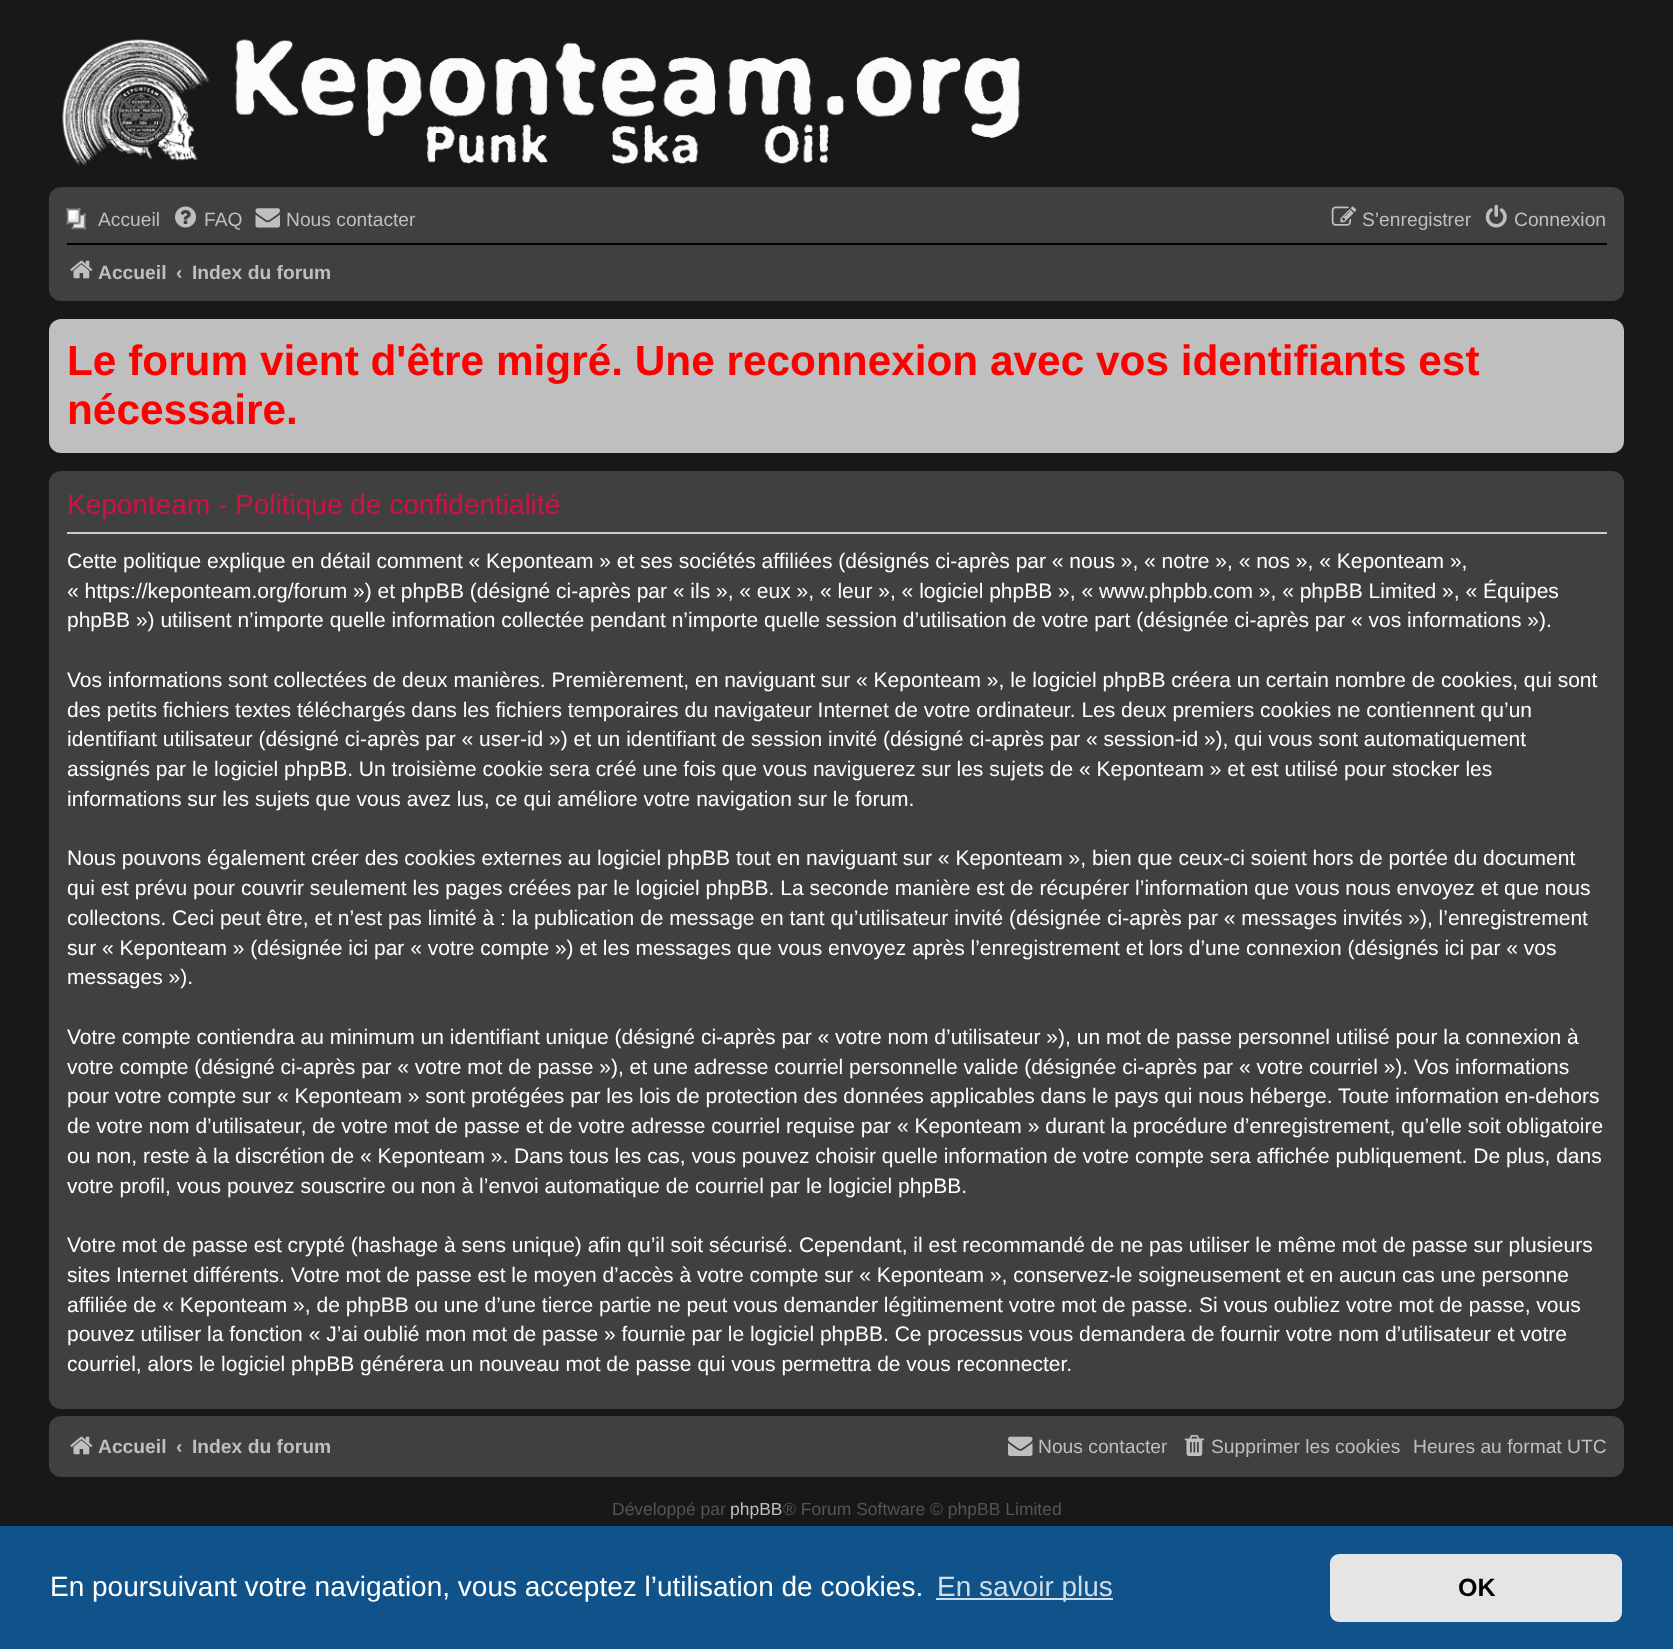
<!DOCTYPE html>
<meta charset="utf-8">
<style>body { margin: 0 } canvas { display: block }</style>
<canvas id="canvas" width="1673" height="1649"></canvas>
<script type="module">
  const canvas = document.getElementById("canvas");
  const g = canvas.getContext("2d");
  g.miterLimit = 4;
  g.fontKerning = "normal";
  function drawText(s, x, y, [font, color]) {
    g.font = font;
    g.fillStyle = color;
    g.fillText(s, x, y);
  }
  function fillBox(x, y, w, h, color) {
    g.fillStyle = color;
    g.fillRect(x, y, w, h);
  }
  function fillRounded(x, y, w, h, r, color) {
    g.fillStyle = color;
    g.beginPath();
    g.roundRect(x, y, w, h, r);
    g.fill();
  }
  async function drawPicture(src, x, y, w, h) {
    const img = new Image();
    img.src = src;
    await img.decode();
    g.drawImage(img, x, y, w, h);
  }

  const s1 = ["19.25px Liberation Sans", "#BFBFBF"];
  const s2 = ["bold 19.25px Liberation Sans", "#BFBFBF"];
  const s3 = ["bold 42.35px Liberation Sans", "#FF0000"];
  const s4 = ["28px Liberation Sans", "#D31141"];
  const s5 = ["21px Liberation Sans", "#FFFFFF"];
  const s6 = ["17.5px Liberation Sans", "#555555"];
  const s7 = ["17.5px Liberation Sans", "#BFBFBF"];
  const s8 = ["28px Liberation Sans", "#FFFFFF"];
  const s9 = ["28px Liberation Sans", "#CFDDE8"];
  const s10 = ["bold 25px Liberation Sans", "#000000"];

  fillBox(0, 0, 1673, 1649, "#181818");
  await drawPicture("pic1.png", 62, 39, 958, 127);
  fillRounded(49, 187, 1575, 114, 12, "#404040");
  await drawPicture("pic2.png", 66, 208, 20, 22);
  drawText("Accueil", 98, 226, s1);
  await drawPicture("pic3.png", 175, 206, 21, 22);
  drawText("FAQ", 204, 226, s1);
  await drawPicture("pic4.png", 255, 208, 25, 20);
  drawText("Nous contacter", 286, 226, s1);
  await drawPicture("pic5.png", 1331, 206, 26, 20);
  drawText("S’enregistrer", 1362, 226, s1);
  await drawPicture("pic6.png", 1485, 204, 22, 24);
  drawText("Connexion", 1514, 226, s1);
  fillBox(67, 243, 1540, 2, "#000000");
  await drawPicture("pic7.png", 70, 260, 23, 19);
  drawText("Accueil", 98, 279, s2);
  drawText("‹", 176, 279, s2);
  drawText("Index du forum", 192, 279, s2);
  fillRounded(49, 319, 1575, 134, 12, "#BFBFBF");
  drawText("Le forum vient d'être migré. Une reconnexion avec vos identifiants est", 67, 375, s3);
  drawText("nécessaire.", 67, 424, s3);
  fillRounded(49, 471, 1575, 938, 12, "#404040");
  fillBox(67, 532, 1540, 2, "#CCCCCC");
  drawText("Keponteam - Politique de confidentialité", 67, 514, s4);
  drawText("Cette politique explique en détail comment « Keponteam » et ses sociétés affiliées (désignés ci-après par « nous », « notre », « nos », « Keponteam »,", 67, 568, s5);
  drawText("« https://keponteam.org/forum ») et phpBB (désigné ci-après par « ils », « eux », « leur », « logiciel phpBB », « www.phpbb.com », « phpBB Limited », « Équipes", 67, 598, s5);
  drawText("phpBB ») utilisent n’importe quelle information collectée pendant n’importe quelle session d’utilisation de votre part (désignée ci-après par « vos informations »).", 67, 627, s5);
  drawText("Vos informations sont collectées de deux manières. Premièrement, en naviguant sur « Keponteam », le logiciel phpBB créera un certain nombre de cookies, qui sont", 67, 687, s5);
  drawText("des petits fichiers textes téléchargés dans les fichiers temporaires du navigateur Internet de votre ordinateur. Les deux premiers cookies ne contiennent qu’un", 67, 717, s5);
  drawText("identifiant utilisateur (désigné ci-après par « user-id ») et un identifiant de session invité (désigné ci-après par « session-id »), qui vous sont automatiquement", 67, 746, s5);
  drawText("assignés par le logiciel phpBB. Un troisième cookie sera créé une fois que vous naviguerez sur les sujets de « Keponteam » et est utilisé pour stocker les", 67, 776, s5);
  drawText("informations sur les sujets que vous avez lus, ce qui améliore votre navigation sur le forum.", 67, 806, s5);
  drawText("Nous pouvons également créer des cookies externes au logiciel phpBB tout en naviguant sur « Keponteam », bien que ceux-ci soient hors de portée du document", 67, 865, s5);
  drawText("qui est prévu pour couvrir seulement les pages créées par le logiciel phpBB. La seconde manière est de récupérer l’information que vous nous envoyez et que nous", 67, 895, s5);
  drawText("collectons. Ceci peut être, et n’est pas limité à : la publication de message en tant qu’utilisateur invité (désignée ci-après par « messages invités »), l’enregistrement", 67, 925, s5);
  drawText("sur « Keponteam » (désignée ici par « votre compte ») et les messages que vous envoyez après l’enregistrement et lors d’une connexion (désignés ici par « vos", 67, 955, s5);
  drawText("messages »).", 67, 984, s5);
  drawText("Votre compte contiendra au minimum un identifiant unique (désigné ci-après par « votre nom d’utilisateur »), un mot de passe personnel utilisé pour la connexion à", 67, 1044, s5);
  drawText("votre compte (désigné ci-après par « votre mot de passe »), et une adresse courriel personnelle valide (désignée ci-après par « votre courriel »). Vos informations", 67, 1074, s5);
  drawText("pour votre compte sur « Keponteam » sont protégées par les lois de protection des données applicables dans le pays qui nous héberge. Toute information en-dehors", 67, 1103, s5);
  drawText("de votre nom d’utilisateur, de votre mot de passe et de votre adresse courriel requise par « Keponteam » durant la procédure d’enregistrement, qu’elle soit obligatoire", 67, 1133, s5);
  drawText("ou non, reste à la discrétion de « Keponteam ». Dans tous les cas, vous pouvez choisir quelle information de votre compte sera affichée publiquement. De plus, dans", 67, 1163, s5);
  drawText("votre profil, vous pouvez souscrire ou non à l’envoi automatique de courriel par le logiciel phpBB.", 67, 1193, s5);
  drawText("Votre mot de passe est crypté (hashage à sens unique) afin qu’il soit sécurisé. Cependant, il est recommandé de ne pas utiliser le même mot de passe sur plusieurs", 67, 1252, s5);
  drawText("sites Internet différents. Votre mot de passe est le moyen d’accès à votre compte sur « Keponteam », conservez-le soigneusement et en aucun cas une personne", 67, 1282, s5);
  drawText("affiliée de « Keponteam », de phpBB ou une d’une tierce partie ne peut vous demander légitimement votre mot de passe. Si vous oubliez votre mot de passe, vous", 67, 1312, s5);
  drawText("pouvez utiliser la fonction « J’ai oublié mon mot de passe » fournie par le logiciel phpBB. Ce processus vous demandera de fournir votre nom d’utilisateur et votre", 67, 1341, s5);
  drawText("courriel, alors le logiciel phpBB générera un nouveau mot de passe qui vous permettra de vous reconnecter.", 67, 1371, s5);
  fillRounded(49, 1416, 1575, 61, 12, "#404040");
  await drawPicture("pic7.png", 70, 1436, 23, 19);
  drawText("Accueil", 98, 1453, s2);
  drawText("‹", 176, 1453, s2);
  drawText("Index du forum", 192, 1453, s2);
  await drawPicture("pic8.png", 1008, 1436, 25, 20);
  drawText("Nous contacter", 1038, 1453, s1);
  await drawPicture("pic9.png", 1184, 1435, 20, 21);
  drawText("Supprimer les cookies", 1211, 1453, s1);
  drawText("Heures au format UTC", 1413, 1453, s1);
  drawText("Développé par", 612, 1515, s6);
  drawText("phpBB", 730, 1515, s7);
  drawText("® Forum Software © phpBB Limited", 783, 1515, s6);
  fillBox(0, 1526, 1673, 123, "#0F538A");
  drawText("En poursuivant votre navigation, vous acceptez l’utilisation de cookies.", 50, 1596, s8);
  fillBox(936, 1598, 177, 2, "#CFDDE8");
  drawText("En savoir plus", 937, 1596, s9);
  fillRounded(1330, 1554, 292, 68, 9, "#E5E5E5");
  drawText("OK", 1458, 1596, s10);
</script>
